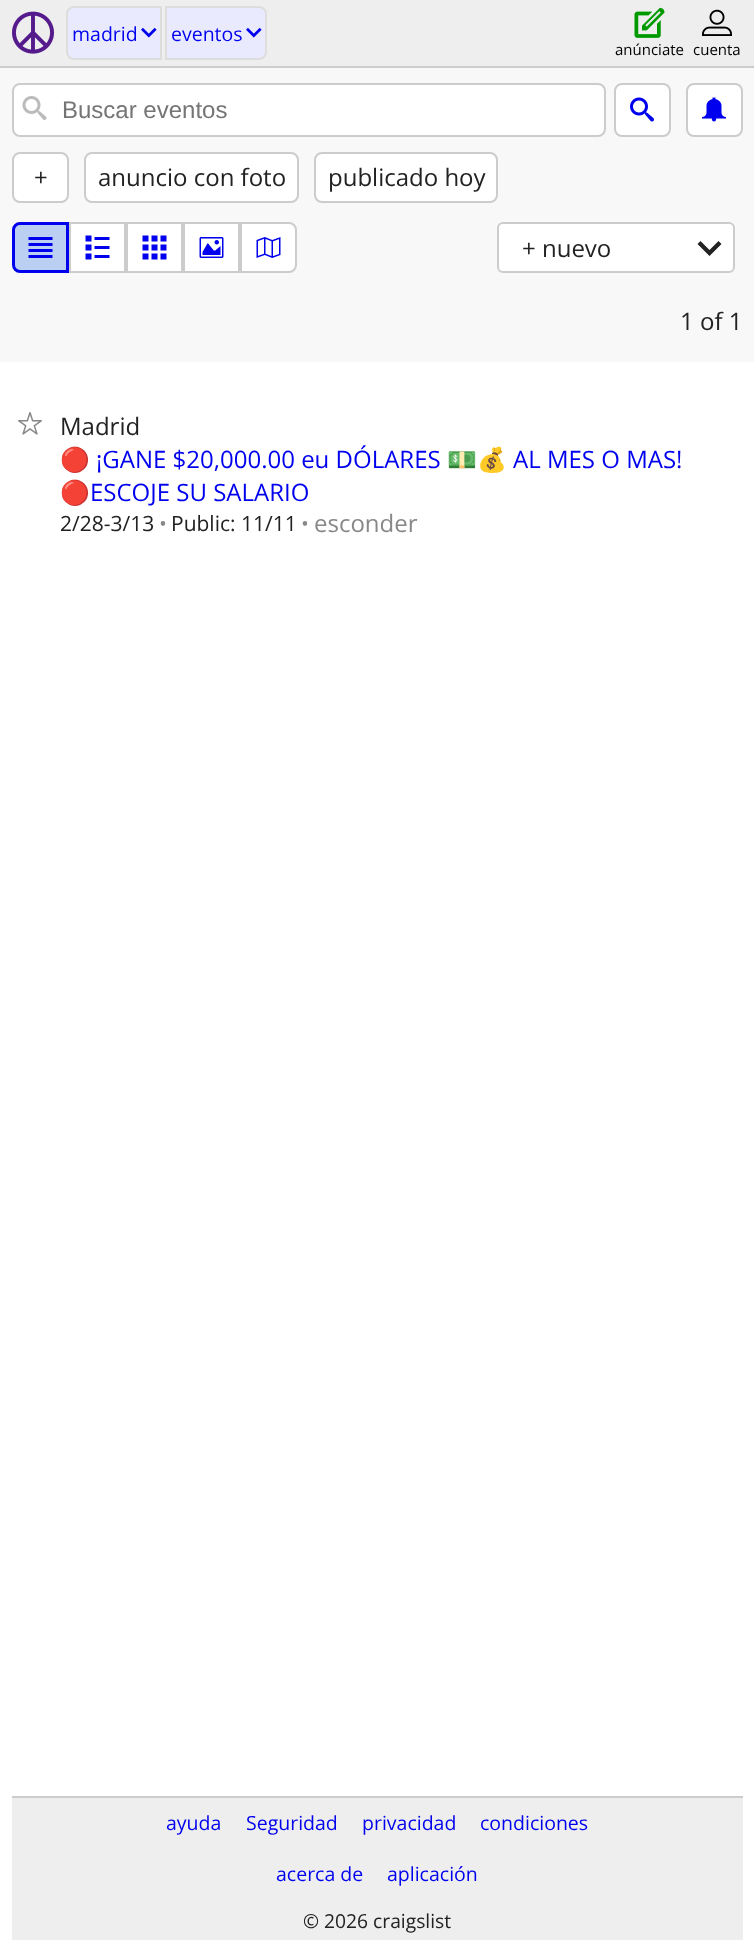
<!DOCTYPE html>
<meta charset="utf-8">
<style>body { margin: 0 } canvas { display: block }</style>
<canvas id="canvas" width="754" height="1940"></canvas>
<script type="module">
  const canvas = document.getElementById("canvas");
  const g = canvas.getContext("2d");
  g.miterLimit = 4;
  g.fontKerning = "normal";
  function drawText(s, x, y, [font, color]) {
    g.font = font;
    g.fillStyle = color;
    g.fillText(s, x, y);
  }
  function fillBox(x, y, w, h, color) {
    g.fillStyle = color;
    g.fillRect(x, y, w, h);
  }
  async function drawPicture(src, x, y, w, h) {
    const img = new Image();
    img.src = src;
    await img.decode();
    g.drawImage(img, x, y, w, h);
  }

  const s1 = ["19.5px Open Sans", "#0000EE"];
  const s2 = ["15px Open Sans", "#000000"];
  const s3 = ["24px Liberation Sans", "#757575"];
  const s4 = ["24px Open Sans", "#222222"];
  const s5 = ["24px Noto Color Emoji", "#0000EE"];
  const s6 = ["24px Open Sans", "#0000EE"];
  const s7 = ["21px Open Sans", "#222222"];
  const s8 = ["21px Open Sans", "#888888"];
  const s9 = ["24px Open Sans", "#888888"];
  const s10 = ["19.25px Open Sans", "#222222"];

  fillBox(0, 0, 754, 1940, "#FFFFFF");
  fillBox(0, 0, 754, 66, "#EEEEEE");
  fillBox(0, 66, 754, 2, "#CCCCCC");
  await drawPicture("pic1.png", 12, 11, 42, 43);
  g.fillStyle = "#EAEAFF";
  g.beginPath();
  g.roundRect(67, 7, 94, 52, [7, 0, 0, 7]);
  g.fill();
  g.strokeStyle = "#DDDDDD";
  g.lineWidth = 2;
  g.stroke();
  drawText("madrid", 72, 41, s1);
  await drawPicture("pic2.png", 141, 27, 16, 11);
  g.fillStyle = "#EAEAFF";
  g.beginPath();
  g.roundRect(166, 7, 100, 52, [0, 7, 7, 0]);
  g.fill();
  g.stroke();
  drawText("eventos", 171, 41, s1);
  await drawPicture("pic2.png", 246, 27, 16, 11);
  await drawPicture("pic3.png", 634, 7, 31, 31);
  drawText("anúnciate", 615, 55, s2);
  await drawPicture("pic4.png", 702, 9, 30, 27);
  drawText("cuenta", 693, 55, s2);
  fillBox(0, 68, 754, 294, "#F8F8F8");
  g.fillStyle = "#FFFFFF";
  g.beginPath();
  g.roundRect(13, 84, 592, 52, 7);
  g.fill();
  g.strokeStyle = "#CCCCCC";
  g.stroke();
  await drawPicture("pic5.png", 22, 96, 25, 24);
  drawText("Buscar eventos", 62, 118, s3);
  g.fillStyle = "#FFFFFF";
  g.beginPath();
  g.roundRect(615, 84, 55, 52, 7);
  g.fill();
  g.stroke();
  await drawPicture("pic6.png", 630, 97, 24, 25);
  g.beginPath();
  g.roundRect(687, 84, 55, 52, 7);
  g.fill();
  g.stroke();
  await drawPicture("pic7.png", 702, 97, 24, 25);
  g.beginPath();
  g.roundRect(13, 153, 55, 49, 7);
  g.fill();
  g.stroke();
  drawText("+", 34, 186, s4);
  g.fillStyle = "#FFFFFF";
  g.beginPath();
  g.roundRect(85, 153, 213, 49, 7);
  g.fill();
  g.stroke();
  drawText("anuncio con foto", 98, 186, s4);
  g.fillStyle = "#FFFFFF";
  g.beginPath();
  g.roundRect(315, 153, 182, 49, 7);
  g.fill();
  g.stroke();
  drawText("publicado hoy", 328, 186, s4);
  g.fillStyle = "#BACFF2";
  g.beginPath();
  g.roundRect(13.5, 223.5, 54, 48, [6.5, 0, 0, 6.5]);
  g.fill();
  g.strokeStyle = "#0000EE";
  g.lineWidth = 3;
  g.stroke();
  await drawPicture("pic8.png", 28, 237, 25, 21);
  g.fillStyle = "#FFFFFF";
  g.beginPath();
  g.rect(70, 223, 55, 49);
  g.fill();
  g.strokeStyle = "#CCCCCC";
  g.lineWidth = 2;
  g.stroke();
  await drawPicture("pic9.png", 85, 235, 25, 25);
  g.beginPath();
  g.rect(127, 223, 55, 49);
  g.fill();
  g.stroke();
  await drawPicture("pic10.png", 142, 235, 25, 25);
  g.beginPath();
  g.rect(184, 223, 55, 49);
  g.fill();
  g.stroke();
  await drawPicture("pic11.png", 199, 237, 25, 21);
  g.beginPath();
  g.roundRect(241, 223, 55, 49, [0, 7, 7, 0]);
  g.fill();
  g.stroke();
  await drawPicture("pic12.png", 256, 237, 25, 21);
  g.beginPath();
  g.roundRect(498, 223, 236, 49, 5);
  g.fill();
  g.stroke();
  drawText("+ nuevo", 522, 257, s4);
  g.beginPath();
  g.moveTo(721.5, 244);
  g.lineTo(718.5, 241);
  g.lineTo(709.5, 250);
  g.lineTo(700.5, 241);
  g.lineTo(697.5, 244);
  g.lineTo(709.5, 256);
  g.closePath();
  g.fill();
  drawText("1 of 1", 680, 330, s4);
  await drawPicture("pic13.png", 18, 412, 24, 23);
  drawText("Madrid", 60, 435, s4);
  drawText("🔴", 60, 468, s5);
  drawText("¡GANE $20,000.00 eu DÓLARES", 96, 468, s6);
  drawText("💵💰", 447, 468, s5);
  drawText("AL MES O MAS!", 513, 468, s6);
  drawText("🔴", 60, 501, s5);
  drawText("ESCOJE SU SALARIO", 90, 501, s6);
  drawText("2/28-3/13", 60, 531, s7);
  drawText("•", 159, 531, s8);
  drawText("Public: 11/11", 171, 531, s7);
  drawText("•", 301, 531, s8);
  drawText("esconder", 314, 532, s9);
  fillBox(12, 1798, 731, 142, "#EEEEEE");
  fillBox(12, 1796, 731, 2, "#CCCCCC");
  drawText("ayuda", 166, 1830, s1);
  drawText("Seguridad", 246, 1830, s1);
  drawText("privacidad", 362, 1830, s1);
  drawText("condiciones", 480, 1830, s1);
  drawText("acerca de", 276, 1881, s1);
  drawText("aplicación", 387, 1881, s1);
  drawText("© 2026 craigslist", 303, 1928, s10);
</script>
